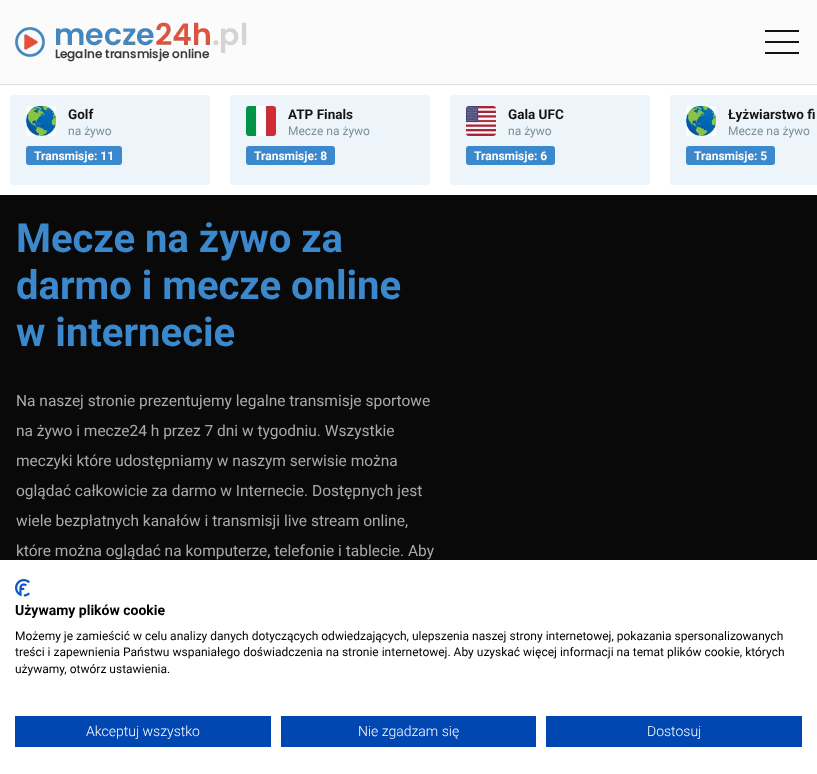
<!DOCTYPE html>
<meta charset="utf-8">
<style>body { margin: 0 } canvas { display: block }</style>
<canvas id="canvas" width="817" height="774"></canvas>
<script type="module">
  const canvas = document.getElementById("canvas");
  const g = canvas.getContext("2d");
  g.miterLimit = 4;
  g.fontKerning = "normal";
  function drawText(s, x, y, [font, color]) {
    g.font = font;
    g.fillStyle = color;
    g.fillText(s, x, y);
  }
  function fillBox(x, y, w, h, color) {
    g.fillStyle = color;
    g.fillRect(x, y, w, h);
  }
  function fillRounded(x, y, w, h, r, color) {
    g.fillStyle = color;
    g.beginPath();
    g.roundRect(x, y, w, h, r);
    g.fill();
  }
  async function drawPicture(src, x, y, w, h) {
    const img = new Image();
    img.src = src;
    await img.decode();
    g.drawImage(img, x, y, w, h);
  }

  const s1 = ["bold 13.5px Roboto", "#141414"];
  const s2 = ["12px Roboto", "#78909C"];
  const s3 = ["bold 12px Roboto", "#FFFFFF"];
  const s4 = ["bold 40px Roboto", "#3B89CC"];
  const s5 = ["15.5px Roboto", "#AAAAAA"];
  const s6 = ["bold 14px Roboto", "#000000"];
  const s7 = ["12px Roboto", "#000000"];
  const s8 = ["300 14px Roboto", "#FFFFFF"];

  fillBox(0, 0, 817, 774, "#090909");
  fillBox(0, 0, 817, 84, "#FBFBFB");
  fillBox(0, 84, 817, 1, "#DDDDDD");
  await drawPicture("pic1.png", 15, 22, 232, 40);
  fillBox(765, 30, 34, 2, "#141414");
  fillBox(765, 41, 34, 2, "#141414");
  fillBox(765, 52, 34, 2, "#141414");
  fillBox(0, 85, 817, 110, "#FFFFFF");
  g.fillStyle = "#EEF5FA";
  g.beginPath();
  g.roundRect(10.5, 95.5, 199, 89, 2.5);
  g.fill();
  g.strokeStyle = "#EEF5FA";
  g.stroke();
  await drawPicture("pic2.png", 26, 106, 30, 30);
  drawText("Golf", 68, 119, s1);
  drawText("na żywo", 68, 135, s2);
  fillRounded(26, 146, 96, 19, 3, "#3B89CC");
  drawText("Transmisje: 11", 34, 160, s3);
  g.fillStyle = "#EEF5FA";
  g.beginPath();
  g.roundRect(230.5, 95.5, 199, 89, 2.5);
  g.fill();
  g.stroke();
  await drawPicture("pic3.png", 246, 106, 30, 30);
  drawText("ATP Finals", 288, 119, s1);
  drawText("Mecze na żywo", 288, 135, s2);
  fillRounded(246, 146, 89, 19, 3, "#3B89CC");
  drawText("Transmisje: 8", 254, 160, s3);
  g.fillStyle = "#EEF5FA";
  g.beginPath();
  g.roundRect(450.5, 95.5, 199, 89, 2.5);
  g.fill();
  g.stroke();
  await drawPicture("pic4.png", 466, 106, 30, 30);
  drawText("Gala UFC", 508, 119, s1);
  drawText("na żywo", 508, 135, s2);
  fillRounded(466, 146, 89, 19, 3, "#3B89CC");
  drawText("Transmisje: 6", 474, 160, s3);
  g.fillStyle = "#EEF5FA";
  g.beginPath();
  g.roundRect(670, 95, 147, 90, [3, 0, 0, 3]);
  g.fill();
  g.beginPath();
  g.roundRect(670.5, 95.5, 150, 89, 2.5);
  g.stroke();
  await drawPicture("pic2.png", 686, 106, 30, 30);
  drawText("Łyżwiarstwo fi", 728, 119, s1);
  drawText("Mecze na żywo", 728, 135, s2);
  fillRounded(686, 146, 89, 19, 3, "#3B89CC");
  drawText("Transmisje: 5", 694, 160, s3);
  drawText("Mecze na żywo za", 16, 252, s4);
  drawText("darmo i mecze online", 16, 299, s4);
  drawText("w internecie", 16, 346, s4);
  drawText("Na naszej stronie prezentujemy legalne transmisje sportowe", 16, 406, s5);
  drawText("na żywo i mecze24 h przez 7 dni w tygodniu. Wszystkie", 16, 436, s5);
  drawText("meczyki które udostępniamy w naszym serwisie można", 16, 466, s5);
  drawText("oglądać całkowicie za darmo w Internecie. Dostępnych jest", 16, 496, s5);
  drawText("wiele bezpłatnych kanałów i transmisji live stream online,", 16, 526, s5);
  drawText("które można oglądać na komputerze, telefonie i tablecie. Aby", 16, 556, s5);
  fillBox(0, 560, 817, 214, "#FFFFFF");
  await drawPicture("pic5.png", 15, 579, 15, 18);
  drawText("Używamy plików cookie", 15, 615, s6);
  drawText("Możemy je zamieścić w celu analizy danych dotyczących odwiedzających, ulepszenia naszej strony internetowej, pokazania spersonalizowanych", 15, 640, s7);
  drawText("treści i zapewnienia Państwu wspaniałego doświadczenia na stronie internetowej. Aby uzyskać więcej informacji na temat plików cookie, których", 15, 656, s7);
  drawText("używamy, otwórz ustawienia.", 15, 673, s7);
  fillBox(15, 716, 256, 31, "#0047B2");
  drawText("Akceptuj wszystko", 86, 736, s8);
  fillBox(281, 716, 255, 31, "#0047B2");
  drawText("Nie zgadzam się", 358, 736, s8);
  fillBox(546, 716, 256, 31, "#0047B2");
  drawText("Dostosuj", 647, 736, s8);
</script>
